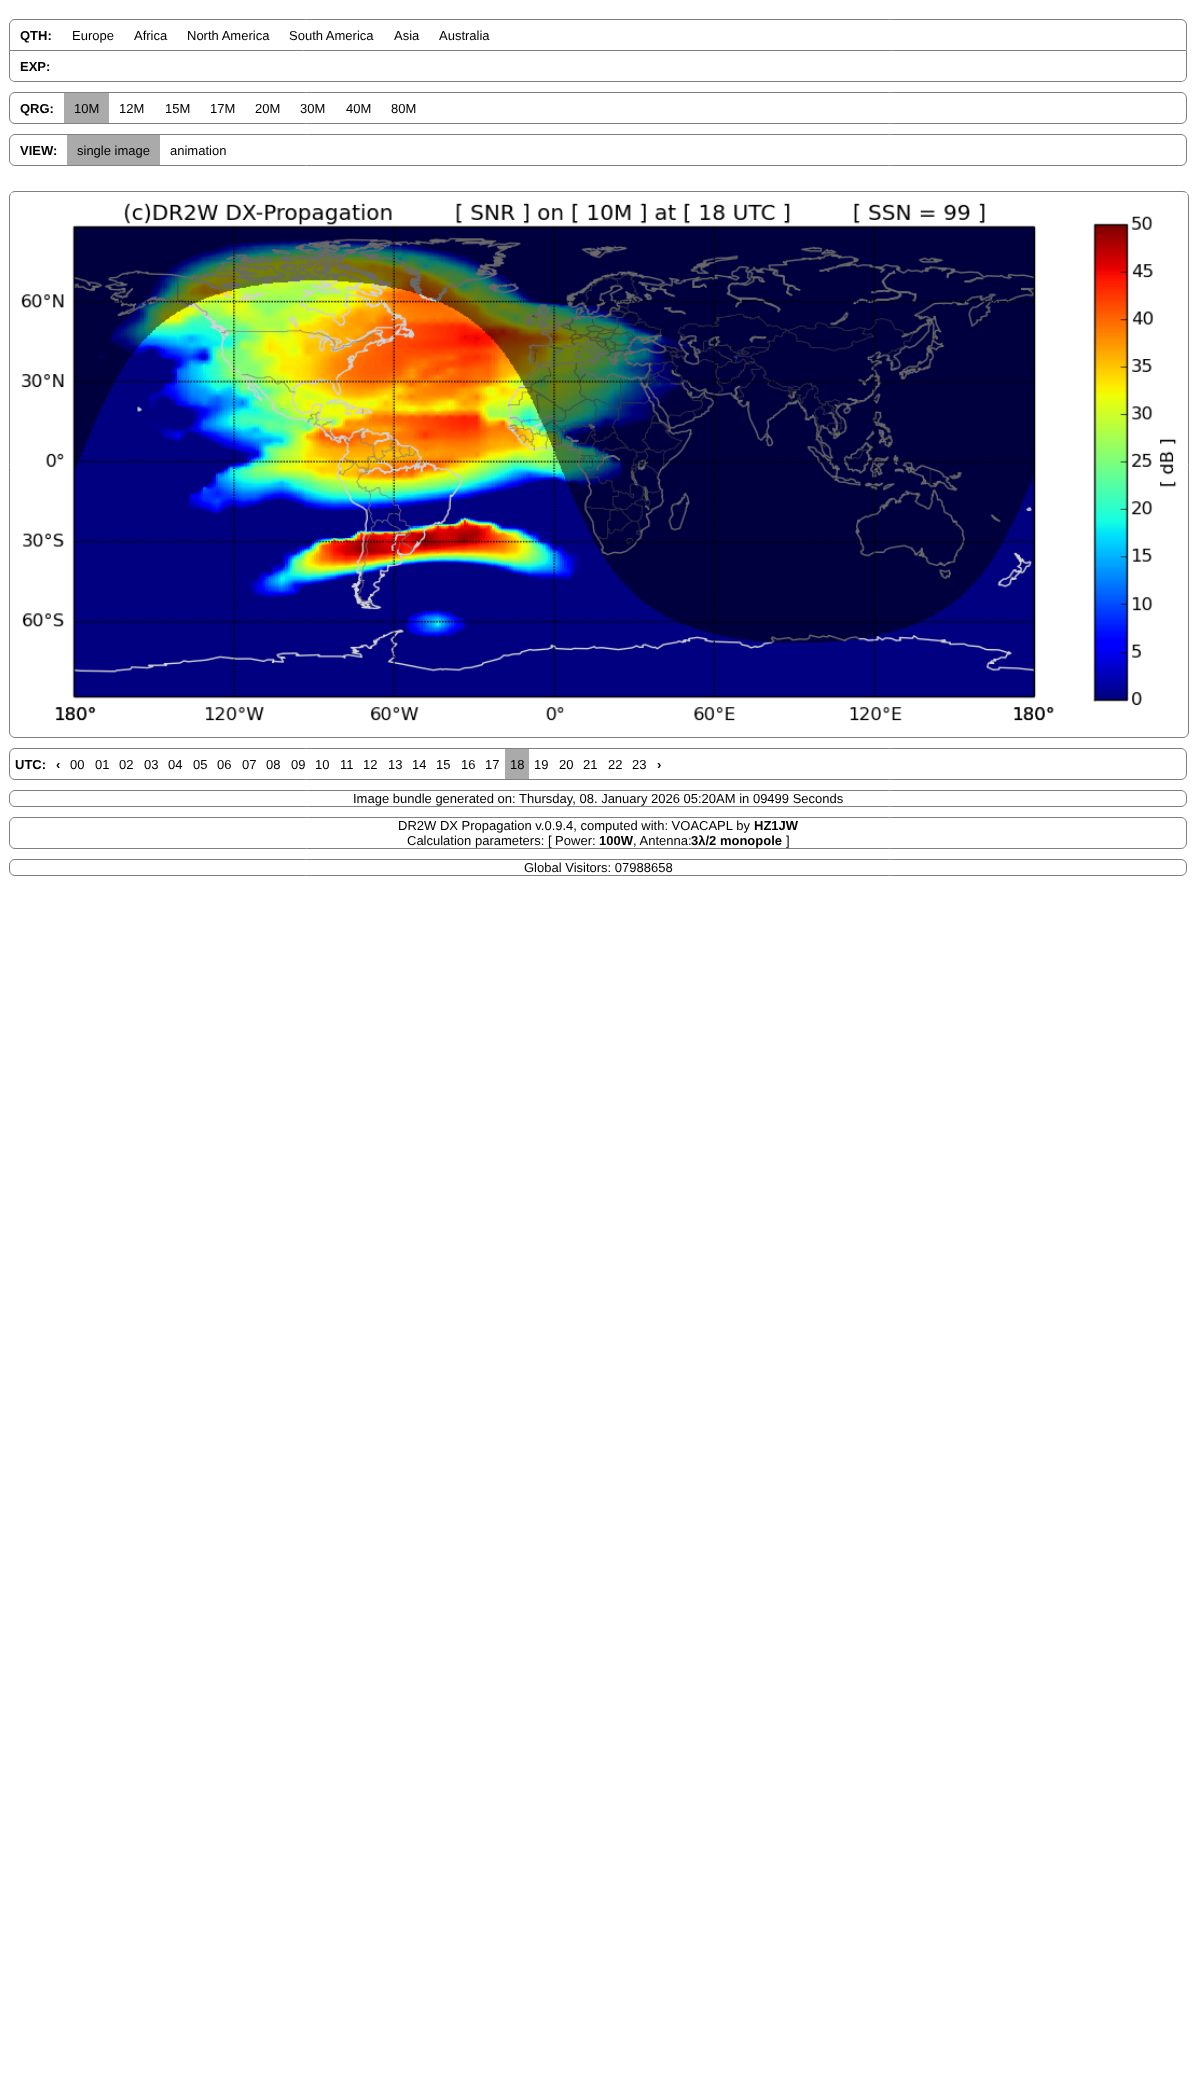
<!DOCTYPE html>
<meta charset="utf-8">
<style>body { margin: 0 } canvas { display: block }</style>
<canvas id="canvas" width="1192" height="2088"></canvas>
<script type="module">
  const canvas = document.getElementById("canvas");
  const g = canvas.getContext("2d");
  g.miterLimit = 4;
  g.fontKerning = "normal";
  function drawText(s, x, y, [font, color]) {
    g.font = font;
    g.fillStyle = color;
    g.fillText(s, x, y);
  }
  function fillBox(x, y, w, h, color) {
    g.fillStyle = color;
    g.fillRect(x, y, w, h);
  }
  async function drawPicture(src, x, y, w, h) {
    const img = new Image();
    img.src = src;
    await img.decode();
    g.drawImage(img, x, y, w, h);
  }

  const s1 = ["bold 13px Liberation Sans", "#000000"];
  const s2 = ["13px Liberation Sans", "#000000"];

  fillBox(0, 0, 1192, 2088, "#FFFFFF");
  g.beginPath();
  g.roundRect(9.5, 19.5, 1177, 31, [5.5, 5.5, 0, 0]);
  g.strokeStyle = "#808080";
  g.stroke();
  drawText("QTH:", 20, 40, s1);
  drawText("Europe", 72, 40, s2);
  drawText("Africa", 134, 40, s2);
  drawText("North America", 187, 40, s2);
  drawText("South America", 289, 40, s2);
  drawText("Asia", 394, 40, s2);
  drawText("Australia", 439, 40, s2);
  g.fillStyle = "#808080";
  g.beginPath();
  g.moveTo(9, 51);
  g.lineTo(1187, 51);
  g.lineTo(1187, 76);
  g.bezierCurveTo(1187, 79, 1184, 82, 1181, 82);
  g.lineTo(15, 82);
  g.bezierCurveTo(12, 82, 9, 79, 9, 76);
  g.closePath();
  g.moveTo(10, 51);
  g.lineTo(1186, 51);
  g.lineTo(1186, 76);
  g.bezierCurveTo(1186, 79, 1184, 81, 1181, 81);
  g.lineTo(15, 81);
  g.bezierCurveTo(12, 81, 10, 79, 10, 76);
  g.closePath();
  g.fill("evenodd");
  drawText("EXP:", 20, 71, s1);
  g.beginPath();
  g.roundRect(9.5, 92.5, 1177, 31, 5.5);
  g.stroke();
  drawText("QRG:", 20, 113, s1);
  fillBox(64, 93, 45, 30, "#AAAAAA");
  drawText("10M", 74, 113, s2);
  drawText("12M", 119, 113, s2);
  drawText("15M", 165, 113, s2);
  drawText("17M", 210, 113, s2);
  drawText("20M", 255, 113, s2);
  drawText("30M", 300, 113, s2);
  drawText("40M", 346, 113, s2);
  drawText("80M", 391, 113, s2);
  g.beginPath();
  g.roundRect(9.5, 134.5, 1177, 31, 5.5);
  g.stroke();
  drawText("VIEW:", 20, 155, s1);
  fillBox(67, 135, 93, 30, "#AAAAAA");
  drawText("single image", 77, 155, s2);
  drawText("animation", 170, 155, s2);
  g.beginPath();
  g.roundRect(9.5, 191.5, 1179, 546, 5.5);
  g.stroke();
  await drawPicture("pic1.png", 11, 193, 1176, 528);
  g.beginPath();
  g.roundRect(9.5, 748.5, 1177, 31, 5.5);
  g.stroke();
  drawText("UTC:", 15, 769, s1);
  drawText("‹", 56, 769, s1);
  drawText("00", 70, 769, s2);
  drawText("01", 95, 769, s2);
  drawText("02", 119, 769, s2);
  drawText("03", 144, 769, s2);
  drawText("04", 168, 769, s2);
  drawText("05", 193, 769, s2);
  drawText("06", 217, 769, s2);
  drawText("07", 242, 769, s2);
  drawText("08", 266, 769, s2);
  drawText("09", 291, 769, s2);
  drawText("10", 315, 769, s2);
  drawText("11", 340, 769, s2);
  drawText("12", 363, 769, s2);
  drawText("13", 388, 769, s2);
  drawText("14", 412, 769, s2);
  drawText("15", 436, 769, s2);
  drawText("16", 461, 769, s2);
  drawText("17", 485, 769, s2);
  fillBox(505, 749, 24, 30, "#AAAAAA");
  drawText("18", 510, 769, s2);
  drawText("19", 534, 769, s2);
  drawText("20", 559, 769, s2);
  drawText("21", 583, 769, s2);
  drawText("22", 608, 769, s2);
  drawText("23", 632, 769, s2);
  drawText("›", 657, 769, s1);
  g.beginPath();
  g.roundRect(9.5, 790.5, 1177, 16, 5.5);
  g.stroke();
  drawText("Image bundle generated on: Thursday, 08. January 2026 05:20AM in 09499 Seconds", 353, 803, s2);
  g.beginPath();
  g.roundRect(9.5, 817.5, 1177, 31, 5.5);
  g.stroke();
  drawText("DR2W DX Propagation v.0.9.4, computed with: VOACAPL by", 398, 830, s2);
  drawText("HZ1JW", 754, 830, s1);
  drawText("Calculation parameters: [ Power:", 407, 845, s2);
  drawText("100W", 599, 845, s1);
  drawText(", Antenna:", 633, 845, s2);
  drawText("3λ/2 monopole", 691, 845, s1);
  drawText("]", 786, 845, s2);
  g.beginPath();
  g.roundRect(9.5, 859.5, 1177, 16, 5.5);
  g.stroke();
  drawText("Global Visitors: 07988658", 524, 872, s2);
</script>
